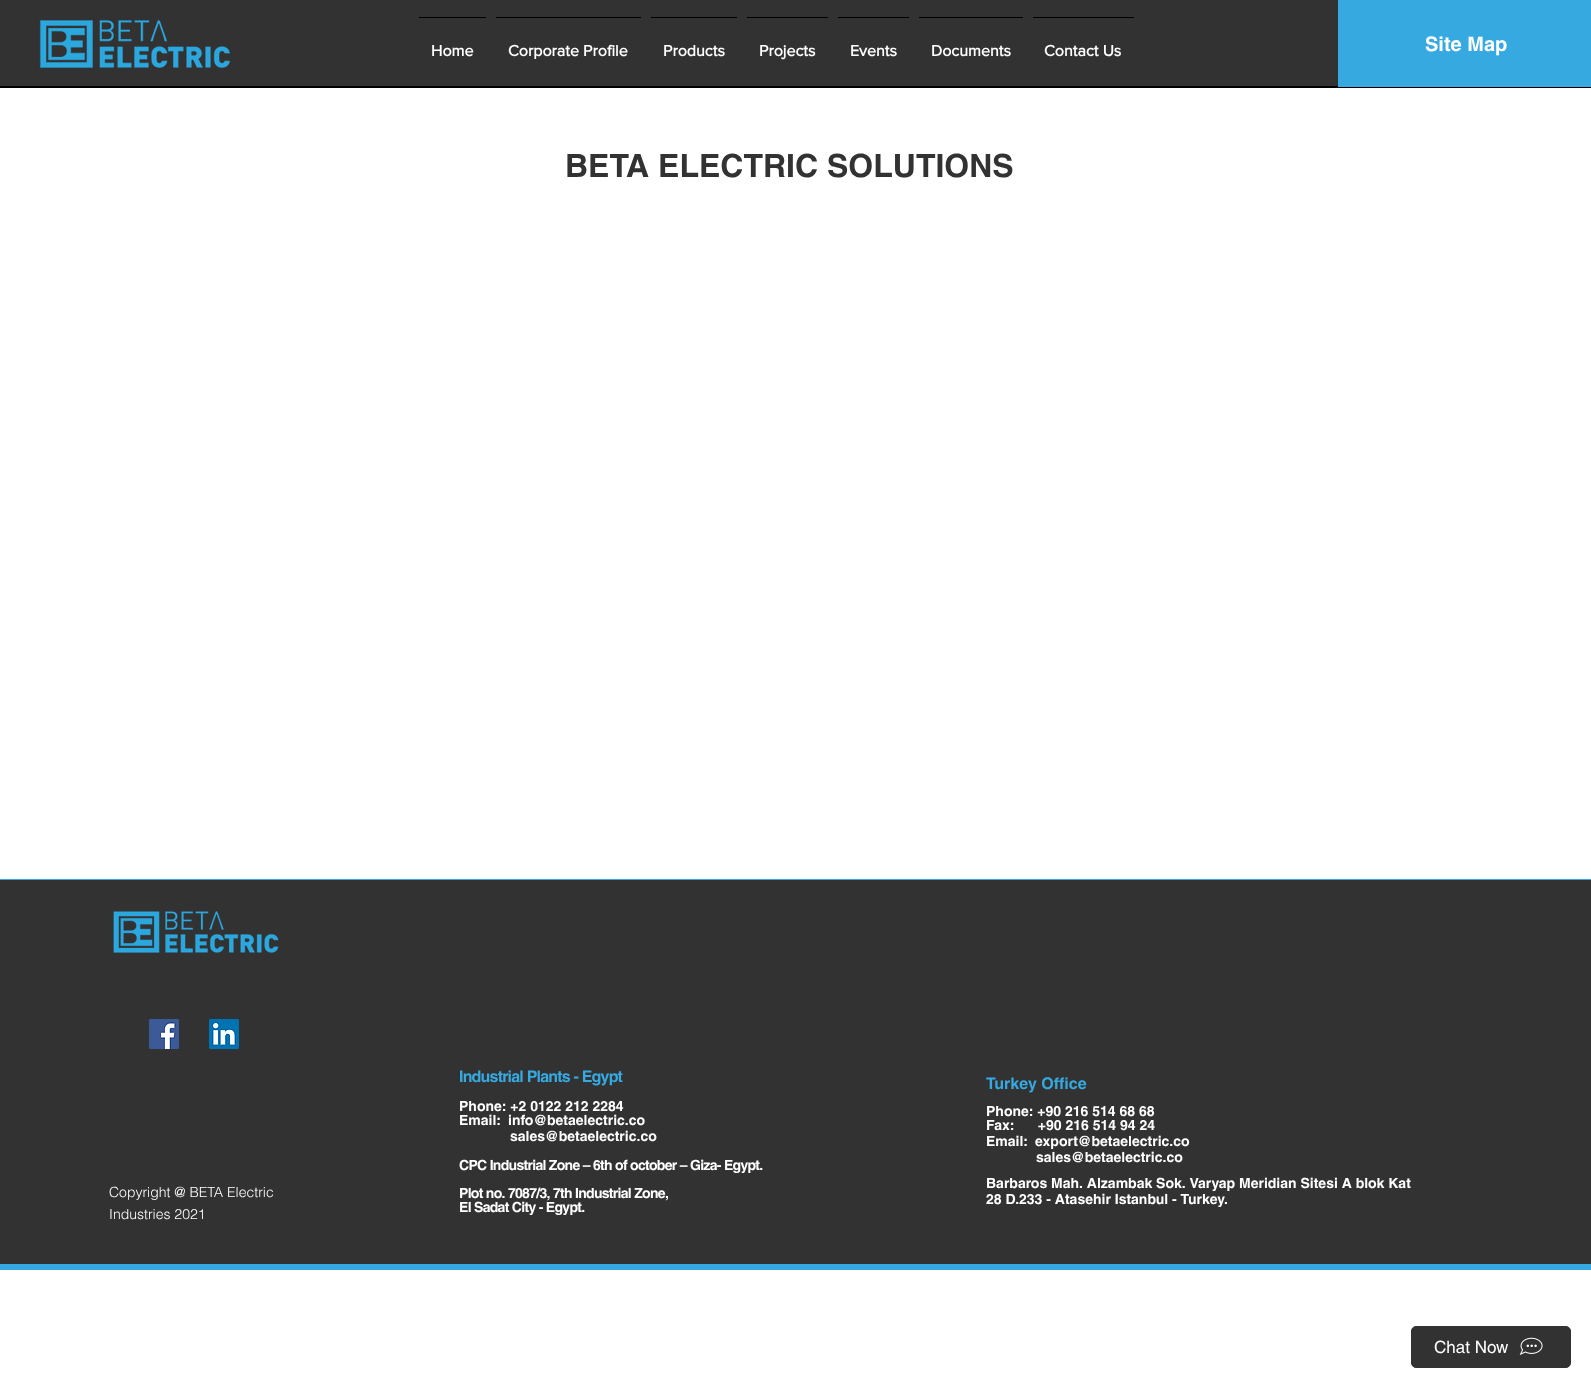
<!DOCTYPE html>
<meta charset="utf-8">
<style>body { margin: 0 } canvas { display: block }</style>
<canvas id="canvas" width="1591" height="1388"></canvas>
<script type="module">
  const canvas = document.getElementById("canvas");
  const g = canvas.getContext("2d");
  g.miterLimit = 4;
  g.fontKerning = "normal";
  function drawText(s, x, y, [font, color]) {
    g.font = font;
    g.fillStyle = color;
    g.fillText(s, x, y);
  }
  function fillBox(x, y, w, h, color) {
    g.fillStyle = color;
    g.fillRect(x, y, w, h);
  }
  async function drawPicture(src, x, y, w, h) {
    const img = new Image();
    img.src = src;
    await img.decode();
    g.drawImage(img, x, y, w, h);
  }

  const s1 = ["bold 16px 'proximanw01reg'", "#FFFFFF"];
  const s2 = ["bold 20px helvetica", "#FFFFFF"];
  const s3 = ["bold 32px helvetica", "#323232"];
  const s4 = ["300 14px helvetica", "#FFFFFF"];
  const s5 = ["bold 16px helvetica", "#36A9E1"];
  const s6 = ["bold 14px helvetica", "#FFFFFF"];
  const s7 = ["17px helvetica", "#FFFFFF"];

  fillBox(0, 0, 1591, 1388, "#FFFFFF");
  fillBox(0, 0, 1338, 86, "#323232");
  fillBox(419, 17, 67, 1, "#000000");
  drawText("Home", 431, 56, s1);
  fillBox(496, 17, 145, 1, "#000000");
  drawText("Corporate Profile", 508, 56, s1);
  fillBox(651, 17, 86, 1, "#000000");
  drawText("Products", 663, 56, s1);
  fillBox(747, 17, 81, 1, "#000000");
  drawText("Projects", 759, 56, s1);
  fillBox(838, 17, 71, 1, "#000000");
  drawText("Events", 850, 56, s1);
  fillBox(919, 17, 104, 1, "#000000");
  drawText("Documents", 931, 56, s1);
  fillBox(1033, 17, 101, 1, "#000000");
  drawText("Contact Us", 1044, 56, s1);
  await drawPicture("pic1.png", 39, 20, 191, 48);
  fillBox(0, 86, 1591, 2, "#000000");
  fillBox(1338, 0, 253, 87, "#36A9E1");
  drawText("Site Map", 1425, 51, s2);
  drawText("BETA ELECTRIC SOLUTIONS", 565, 177, s3);
  fillBox(0, 879, 1591, 391, "#36A9E1");
  fillBox(0, 880, 1591, 384, "#323232");
  await drawPicture("pic2.png", 113, 911, 166, 42);
  await drawPicture("pic3.png", 149, 1019, 30, 30);
  await drawPicture("pic4.png", 209, 1019, 30, 30);
  drawText("Copyright @ BETA Electric", 109, 1197, s4);
  drawText("Industries 2021", 109, 1219, s4);
  g.letterSpacing = "-0.8px";
  drawText("Industrial Plants - Egypt", 459, 1082, s5);
  g.letterSpacing = "0px";
  drawText("Phone: +2 0122 212 2284", 459, 1111, s6);
  drawText("Email:", 459, 1125, s6);
  drawText("info@betaelectric.co", 508, 1125, s6);
  drawText("sales@betaelectric.co", 510, 1141, s6);
  g.letterSpacing = "-0.7px";
  drawText("CPC Industrial Zone – 6th of october – Giza- Egypt.", 459, 1170, s6);
  drawText("Plot no. 7087/3, 7th Industrial Zone,", 459, 1198, s6);
  drawText("El Sadat City - Egypt.", 459, 1212, s6);
  g.letterSpacing = "0px";
  drawText("Turkey Office", 986, 1089, s5);
  drawText("Phone: +90 216 514 68 68", 986, 1116, s6);
  drawText("Fax:      +90 216 514 94 24", 986, 1130, s6);
  drawText("Email:", 986, 1146, s6);
  drawText("export@betaelectric.co", 1035, 1146, s6);
  drawText("sales@betaelectric.co", 1036, 1162, s6);
  drawText("Barbaros Mah. Alzambak Sok. Varyap Meridian Sitesi A blok Kat", 986, 1188, s6);
  drawText("28 D.233 - Atasehir Istanbul - Turkey.", 986, 1204, s6);
  g.fillStyle = "#323232";
  g.beginPath();
  g.roundRect(1411.5, 1326.5, 159, 41, 4.5);
  g.fill();
  g.strokeStyle = "#323232";
  g.stroke();
  drawText("Chat Now", 1434, 1353, s7);
  await drawPicture("pic5.png", 1519, 1337, 24, 18);
</script>
